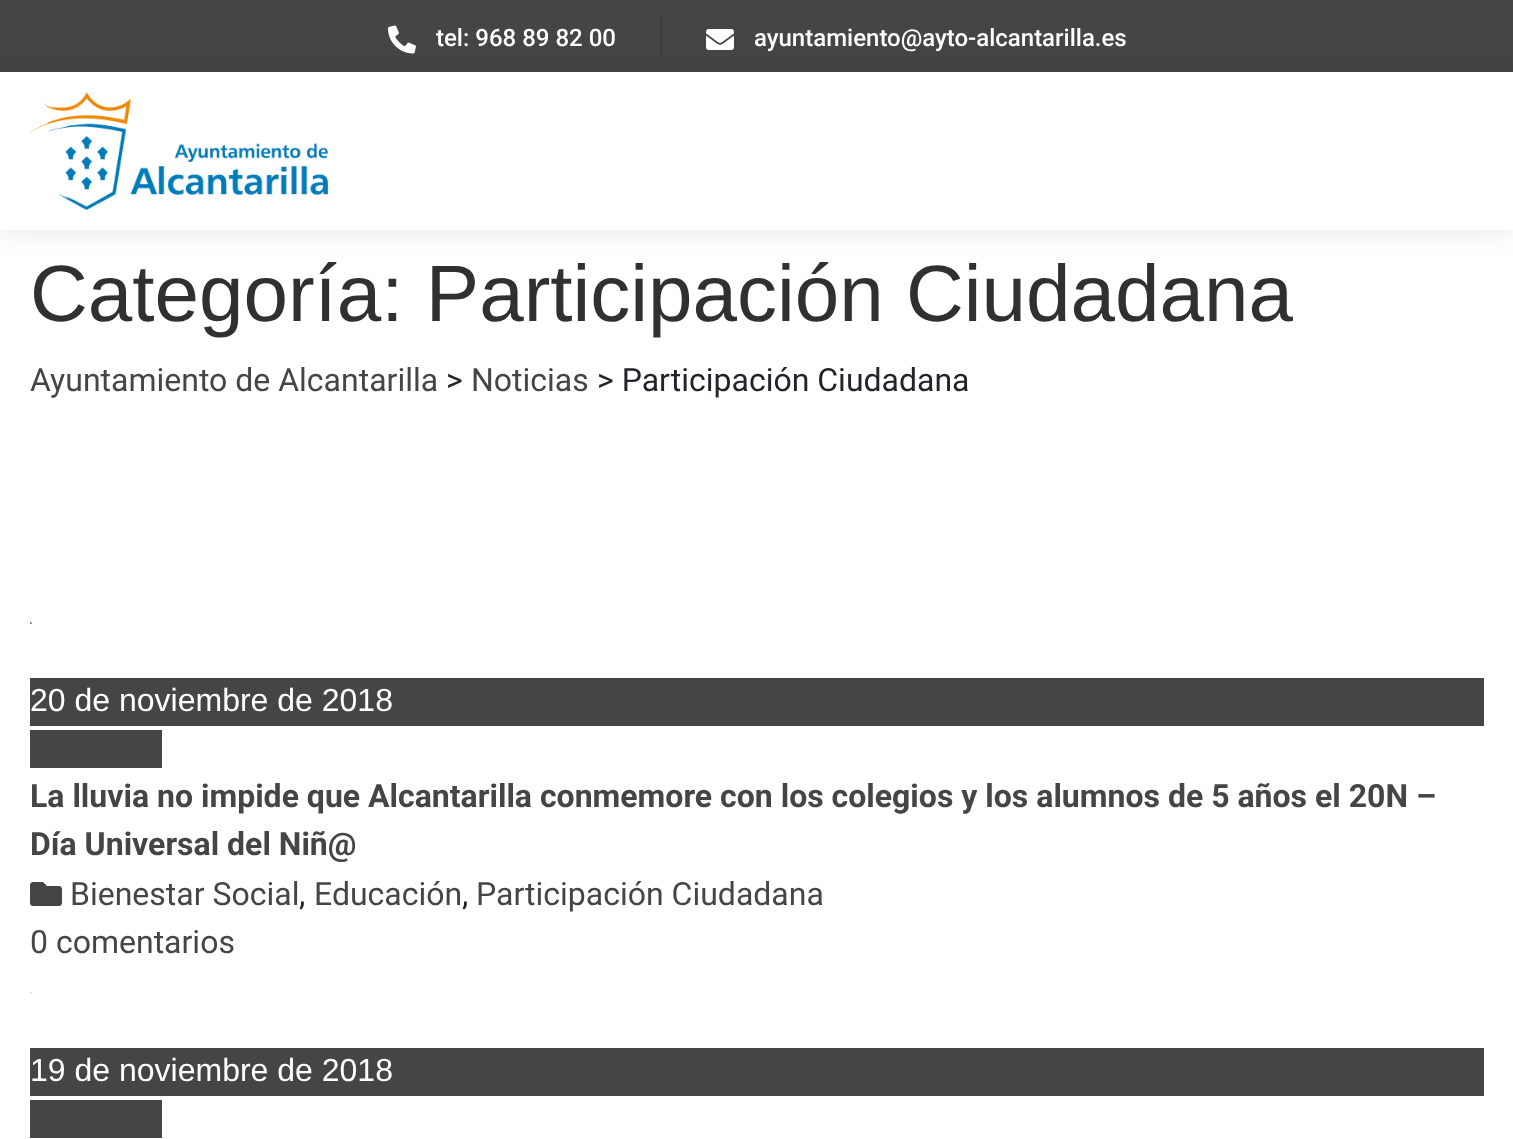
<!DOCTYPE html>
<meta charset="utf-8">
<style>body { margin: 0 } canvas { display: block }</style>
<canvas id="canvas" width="1513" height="1139"></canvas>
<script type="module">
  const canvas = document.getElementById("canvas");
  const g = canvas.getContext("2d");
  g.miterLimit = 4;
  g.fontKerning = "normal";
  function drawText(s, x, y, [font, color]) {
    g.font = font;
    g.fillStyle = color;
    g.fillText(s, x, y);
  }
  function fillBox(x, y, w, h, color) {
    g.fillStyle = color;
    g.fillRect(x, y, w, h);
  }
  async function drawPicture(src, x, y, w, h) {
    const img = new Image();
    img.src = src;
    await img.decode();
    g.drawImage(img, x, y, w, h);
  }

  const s1 = ["500 24px Roboto", "#FFFFFF"];
  const s2 = ["80px Liberation Sans", "#2F3130"];
  const s3 = ["32px Roboto", "#454545"];
  const s4 = ["32px Roboto", "#212529"];
  const s5 = ["32px Liberation Sans", "#FFFFFF"];
  const s6 = ["bold 32px Roboto", "#454545"];

  fillBox(0, 0, 1513, 1139, "#FFFFFF");
  fillBox(0, 0, 1513, 72, "#454545");
  await drawPicture("pic2.png", 388, 25, 28, 29);
  fillBox(660, 16, 2, 40, "#3E3E3E");
  await drawPicture("pic3.png", 706, 29, 28, 21);
  g.save();
  g.beginPath();
  g.moveTo(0, 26);
  g.lineTo(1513, 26);
  g.lineTo(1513, 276);
  g.lineTo(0, 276);
  g.closePath();
  g.moveTo(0, 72);
  g.lineTo(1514, 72);
  g.lineTo(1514, 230);
  g.lineTo(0, 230);
  g.closePath();
  g.clip("evenodd");
  g.fillStyle = "rgba(0, 0, 0, 0.1)";
  g.filter = "blur(15px)";
  g.beginPath();
  g.rect(0, 72, 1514, 158);
  g.fill();
  g.filter = "none";
  g.restore();
  await drawPicture("pic1.png", 30, 92, 298, 118);
  drawText("tel: 968 89 82 00", 436, 46, s1);
  drawText("ayuntamiento@ayto-alcantarilla.es", 754, 46, s1);
  drawText("Categoría: Participación Ciudadana", 30, 321, s2);
  drawText("Ayuntamiento de Alcantarilla", 30, 391, s3);
  drawText(">", 446, 391, s4);
  drawText("Noticias", 471, 391, s3);
  drawText("> Participación Ciudadana", 597, 391, s4);
  await drawPicture("pic4.png", 30, 622, 2, 2);
  fillBox(30, 678, 1454, 48, "#454545");
  drawText("20 de noviembre de 2018", 30, 711, s5);
  fillBox(30, 730, 132, 38, "#454545");
  drawText("La lluvia no impide que Alcantarilla conmemore con los colegios y los alumnos de 5 años el 20N –", 30, 807, s6);
  drawText("Día Universal del Niñ@", 30, 855, s6);
  await drawPicture("pic5.png", 30, 882, 32, 24);
  drawText("Bienestar Social", 70, 905, s3);
  drawText(",", 299, 905, s4);
  drawText("Educación", 314, 905, s3);
  drawText(",", 462, 905, s4);
  drawText("Participación Ciudadana", 476, 905, s3);
  drawText("0 comentarios", 30, 953, s3);
  await drawPicture("pic6.png", 30, 992, 2, 2);
  fillBox(30, 1048, 1454, 48, "#454545");
  drawText("19 de noviembre de 2018", 30, 1081, s5);
  fillBox(30, 1100, 132, 38, "#454545");
</script>
